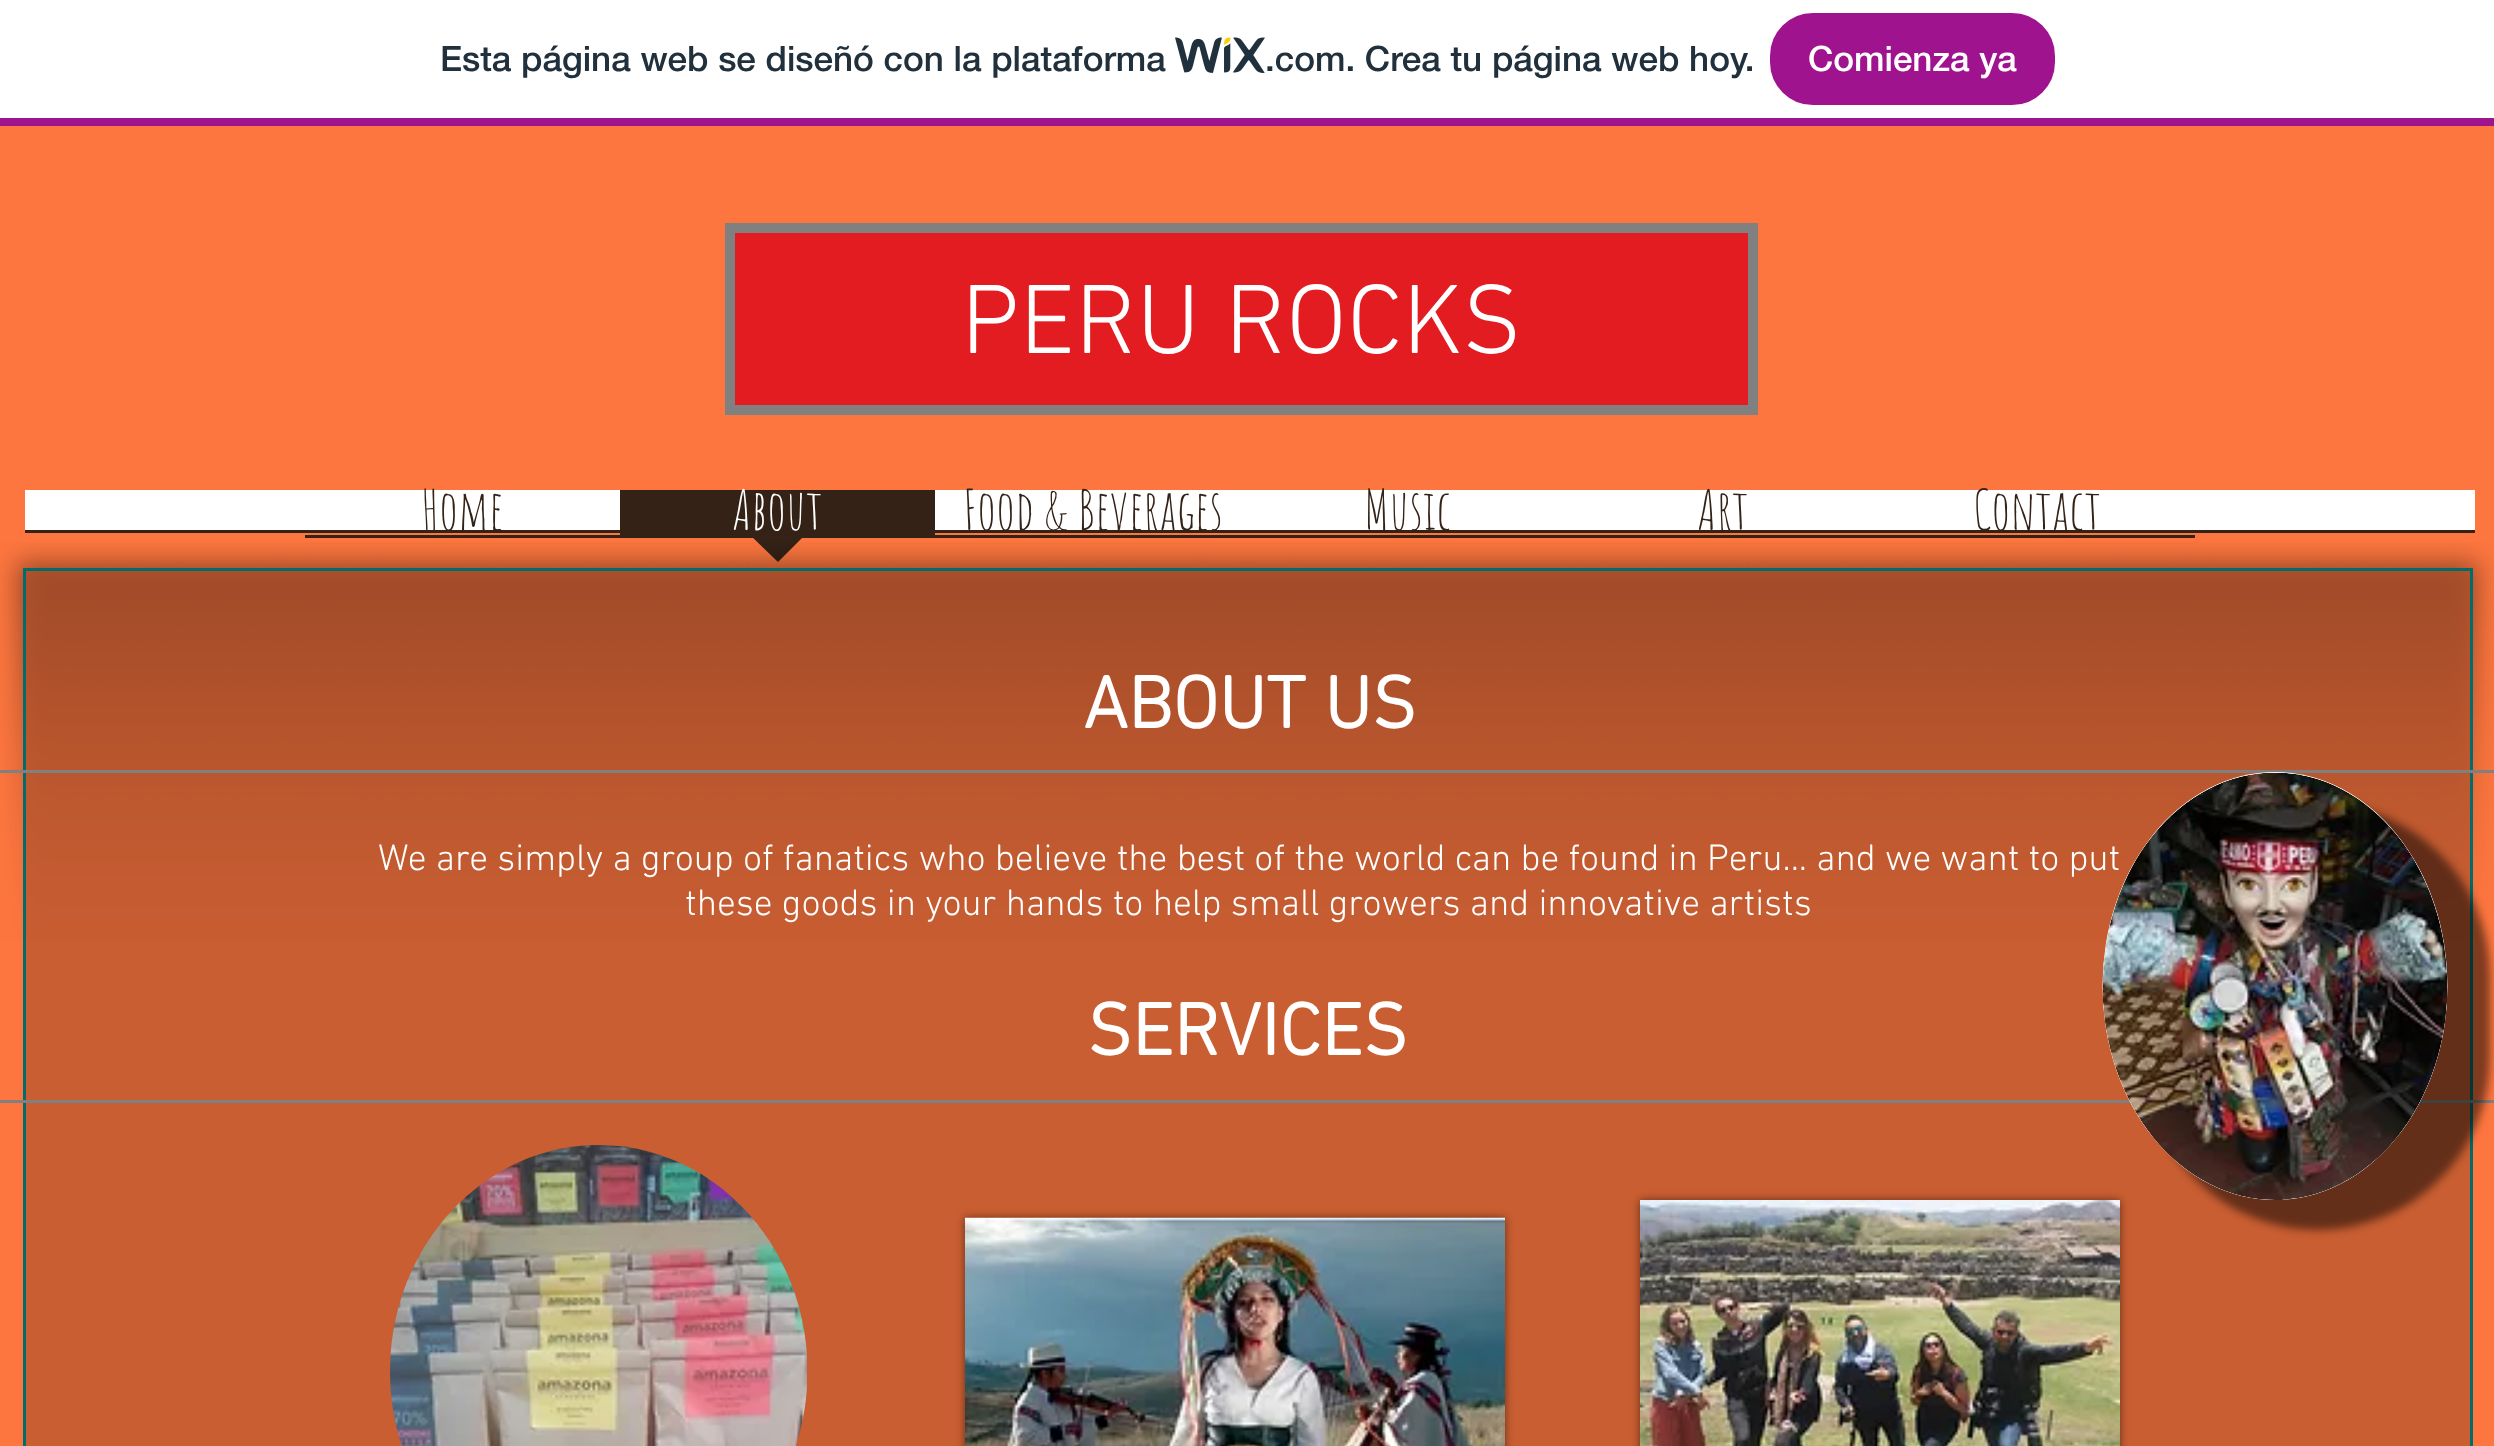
<!DOCTYPE html>
<meta charset="utf-8">
<style>body { margin: 0 } canvas { display: block }</style>
<canvas id="canvas" width="2494" height="1446"></canvas>
<script type="module">
  const canvas = document.getElementById("canvas");
  const g = canvas.getContext("2d");
  g.miterLimit = 4;
  g.fontKerning = "normal";
  function drawText(s, x, y, [font, color]) {
    g.font = font;
    g.fillStyle = color;
    g.fillText(s, x, y);
  }
  function fillBox(x, y, w, h, color) {
    g.fillStyle = color;
    g.fillRect(x, y, w, h);
  }
  async function drawPicture(src, x, y, w, h) {
    const img = new Image();
    img.src = src;
    await img.decode();
    g.drawImage(img, x, y, w, h);
  }

  const s1 = ["500 35px 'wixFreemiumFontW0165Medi'", "#20303C"];
  const s2 = ["500 35px 'wixFreemiumFontW0165Medi'", "#FFFFFF"];
  const s3 = ["300 100px 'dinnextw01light'", "#FFFFFF"];
  const s4 = ["55px Amatic SC", "#342216"];
  const s5 = ["55px Amatic SC", "#FFFFFF"];
  const s6 = ["bold 75px 'dinnextw01light'", "#FFFFFF"];
  const s7 = ["300 37.5px 'dinnextw01light'", "#FFFFFF"];

  fillBox(0, 0, 2494, 1446, "#FFFFFF");
  fillBox(0, 118, 2494, 8, "#A0138E");
  drawText("Esta página web se diseñó con la plataforma", 440, 71, s1);
  await drawPicture("pic1.png", 1175, 37, 90, 36);
  drawText(".com. Crea tu página web hoy.", 1265, 71, s1);
  g.fillStyle = "#A0138E";
  g.beginPath();
  g.roundRect(1771.5, 14.5, 282, 89, 41.5);
  g.fill();
  g.strokeStyle = "#A0138E";
  g.lineWidth = 3;
  g.stroke();
  drawText("Comienza ya", 1808, 71, s2);
  fillBox(0, 126, 2494, 1320, "#FD763F");
  g.fillStyle = "#E21C21";
  g.beginPath();
  g.rect(730, 228, 1023, 182);
  g.fill();
  g.strokeStyle = "#808080";
  g.lineWidth = 10;
  g.stroke();
  drawText("PERU ROCKS", 961, 353, s3);
  fillBox(25, 490, 2450, 40, "#FFFFFF");
  fillBox(25, 530, 2450, 3, "#342216");
  drawText("Home", 421, 530, s4);
  fillBox(305, 535, 315, 3, "#342216");
  fillBox(620, 490, 315, 48, "#342216");
  drawText("About", 732, 530, s5);
  g.fillStyle = "#342216";
  g.beginPath();
  g.moveTo(750, 535);
  g.lineTo(805, 535);
  g.lineTo(778, 562);
  g.closePath();
  g.fill();
  drawText("Food & Beverages", 963, 530, s4);
  fillBox(935, 535, 1260, 3, "#342216");
  drawText("Music", 1364, 530, s4);
  drawText("Art", 1697, 530, s4);
  drawText("Contact", 1973, 530, s4);
  await drawPicture("pic2.png", 0, 542, 110, 399);
  await drawPicture("pic3.png", 110, 542, 2275, 399);
  await drawPicture("pic4.png", 2385, 542, 109, 399);
  g.fillStyle = "rgba(169, 79, 42, 0.61)";
  g.beginPath();
  g.rect(24.5, 569.5, 2447, 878);
  g.fill();
  g.strokeStyle = "#006C6D";
  g.lineWidth = 3;
  g.stroke();
  drawText("ABOUT US", 1083, 728, s6);
  fillBox(0, 770, 2494, 3, "#808080");
  drawText("We are simply a group of fanatics who believe the best of the world can be found in Peru... and we want to put", 378, 870, s7);
  drawText("these goods in your hands to help small growers and innovative artists", 685, 915, s7);
  fillBox(0, 1100, 2494, 3, "#808080");
  g.fillStyle = "rgba(0, 0, 0, 0.5)";
  g.filter = "blur(4px)";
  g.beginPath();
  g.roundRect(2145, 803, 345, 427, 172.5);
  g.fill();
  g.filter = "none";
  g.filter = "blur(4px)";
  g.beginPath();
  g.rect(1640, 1200, 480, 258);
  g.fill();
  g.filter = "none";
  g.fillStyle = "#FFFFFF";
  g.beginPath();
  g.ellipse(2275, 986, 172.5, 214, 0, 0, Math.PI * 2);
  g.fill();
  await drawPicture("pic5.png", 2102, 772, 346, 428);
  drawText("SERVICES", 1087, 1055, s6);
  await drawPicture("pic6.png", 390, 1145, 417, 301);
  g.fillStyle = "rgba(0, 0, 0, 0.5)";
  g.filter = "blur(4px)";
  g.beginPath();
  g.rect(965, 1218, 540, 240);
  g.fill();
  g.filter = "none";
  await drawPicture("pic7.png", 965, 1217, 540, 229);
  await drawPicture("pic8.png", 1640, 1200, 480, 246);
</script>
